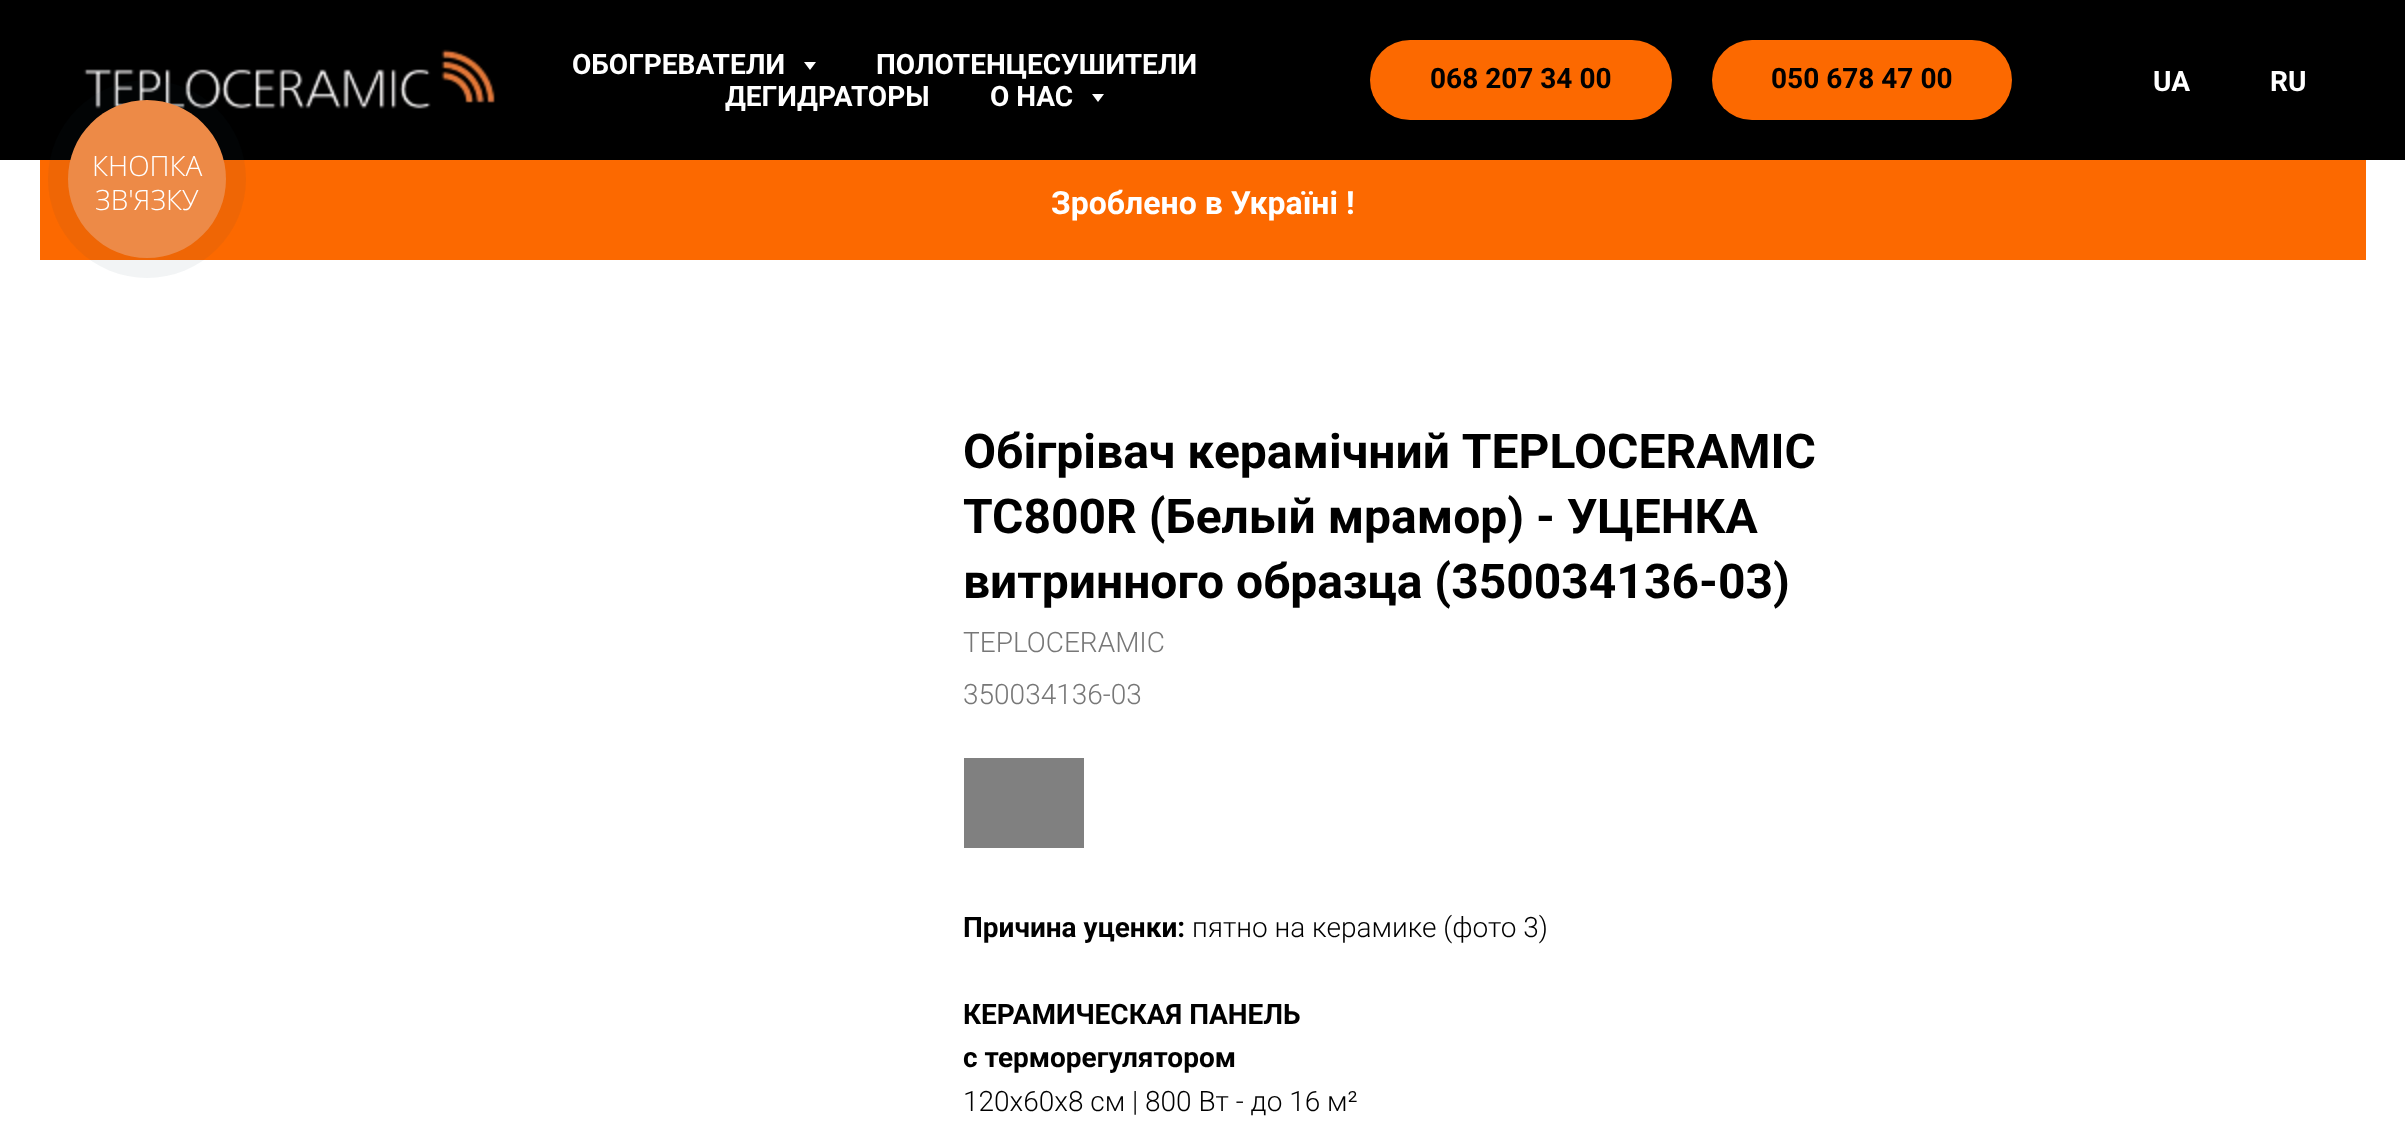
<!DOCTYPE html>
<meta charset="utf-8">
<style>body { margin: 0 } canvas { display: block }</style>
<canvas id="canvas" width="2405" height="1135"></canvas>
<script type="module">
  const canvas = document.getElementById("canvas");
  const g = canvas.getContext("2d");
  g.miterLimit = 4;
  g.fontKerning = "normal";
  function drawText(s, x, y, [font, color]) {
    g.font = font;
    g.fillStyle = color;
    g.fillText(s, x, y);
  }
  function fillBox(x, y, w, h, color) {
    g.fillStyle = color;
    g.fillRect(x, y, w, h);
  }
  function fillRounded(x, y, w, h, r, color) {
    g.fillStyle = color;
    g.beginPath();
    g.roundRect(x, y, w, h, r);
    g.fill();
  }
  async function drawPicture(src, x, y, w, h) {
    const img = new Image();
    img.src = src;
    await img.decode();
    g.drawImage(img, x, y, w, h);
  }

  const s1 = ["300 28px Open Sans", "#FFFFFF"];
  const s2 = ["bold 28px Roboto", "#FFFFFF"];
  const s3 = ["bold 28px Roboto", "#000000"];
  const s4 = ["bold 32px Roboto", "#FFFFFF"];
  const s5 = ["bold 48px Roboto", "#000000"];
  const s6 = ["300 28px Roboto", "#777777"];
  const s7 = ["300 28px Roboto", "#000000"];

  fillBox(0, 0, 2405, 1135, "#FFFFFF");
  fillBox(0, 0, 2405, 160, "#000000");
  await drawPicture("pic1.png", 83, 49, 412, 60);
  fillBox(40, 160, 2326, 100, "#FC6900");
  g.fillStyle = "rgba(42, 64, 93, 0.06)";
  g.beginPath();
  g.arc(147, 179, 99, 0, Math.PI * 2);
  g.fill();
  g.fillStyle = "#ED8A47";
  g.beginPath();
  g.arc(147, 179, 79, 0, Math.PI * 2);
  g.fill();
  drawText("КНОПКА", 92, 176, s1);
  drawText("ЗВ'ЯЗКУ", 95, 210, s1);
  drawText("ОБОГРЕВАТЕЛИ", 572, 74, s2);
  g.beginPath();
  g.moveTo(804, 62);
  g.lineTo(816, 62);
  g.lineTo(810, 70);
  g.closePath();
  g.fill();
  drawText("ПОЛОТЕНЦЕСУШИТЕЛИ", 876, 74, s2);
  drawText("ДЕГИДРАТОРЫ", 725, 106, s2);
  drawText("О НАС", 990, 106, s2);
  g.beginPath();
  g.moveTo(1092, 94);
  g.lineTo(1104, 94);
  g.lineTo(1098, 102);
  g.closePath();
  g.fill();
  fillRounded(1370, 40, 302, 80, 40, "#FC6900");
  drawText("068 207 34 00", 1430, 88, s3);
  fillRounded(1712, 40, 300, 80, 40, "#FC6900");
  drawText("050 678 47 00", 1771, 88, s3);
  drawText("UA", 2153, 91, s2);
  drawText("RU", 2270, 91, s2);
  drawText("Зроблено в Україні !", 1051, 214, s4);
  drawText("Обігрівач керамічний TEPLOCERAMIC", 963, 468, s5);
  drawText("TC800R (Белый мрамор) - УЦЕНКА", 963, 533, s5);
  drawText("витринного образца (350034136-03)", 963, 598, s5);
  drawText("TEPLOCERAMIC", 963, 652, s6);
  drawText("350034136-03", 963, 704, s6);
  fillBox(964, 758, 120, 90, "#808080");
  drawText("Причина уценки:", 963, 937, s3);
  drawText("пятно на керамике (фото 3)", 1192, 937, s7);
  drawText("КЕРАМИЧЕСКАЯ ПАНЕЛЬ", 963, 1024, s3);
  drawText("c терморегулятором", 963, 1067, s3);
  drawText("120х60х8 см | 800 Вт - до 16 м²", 963, 1111, s7);
</script>
